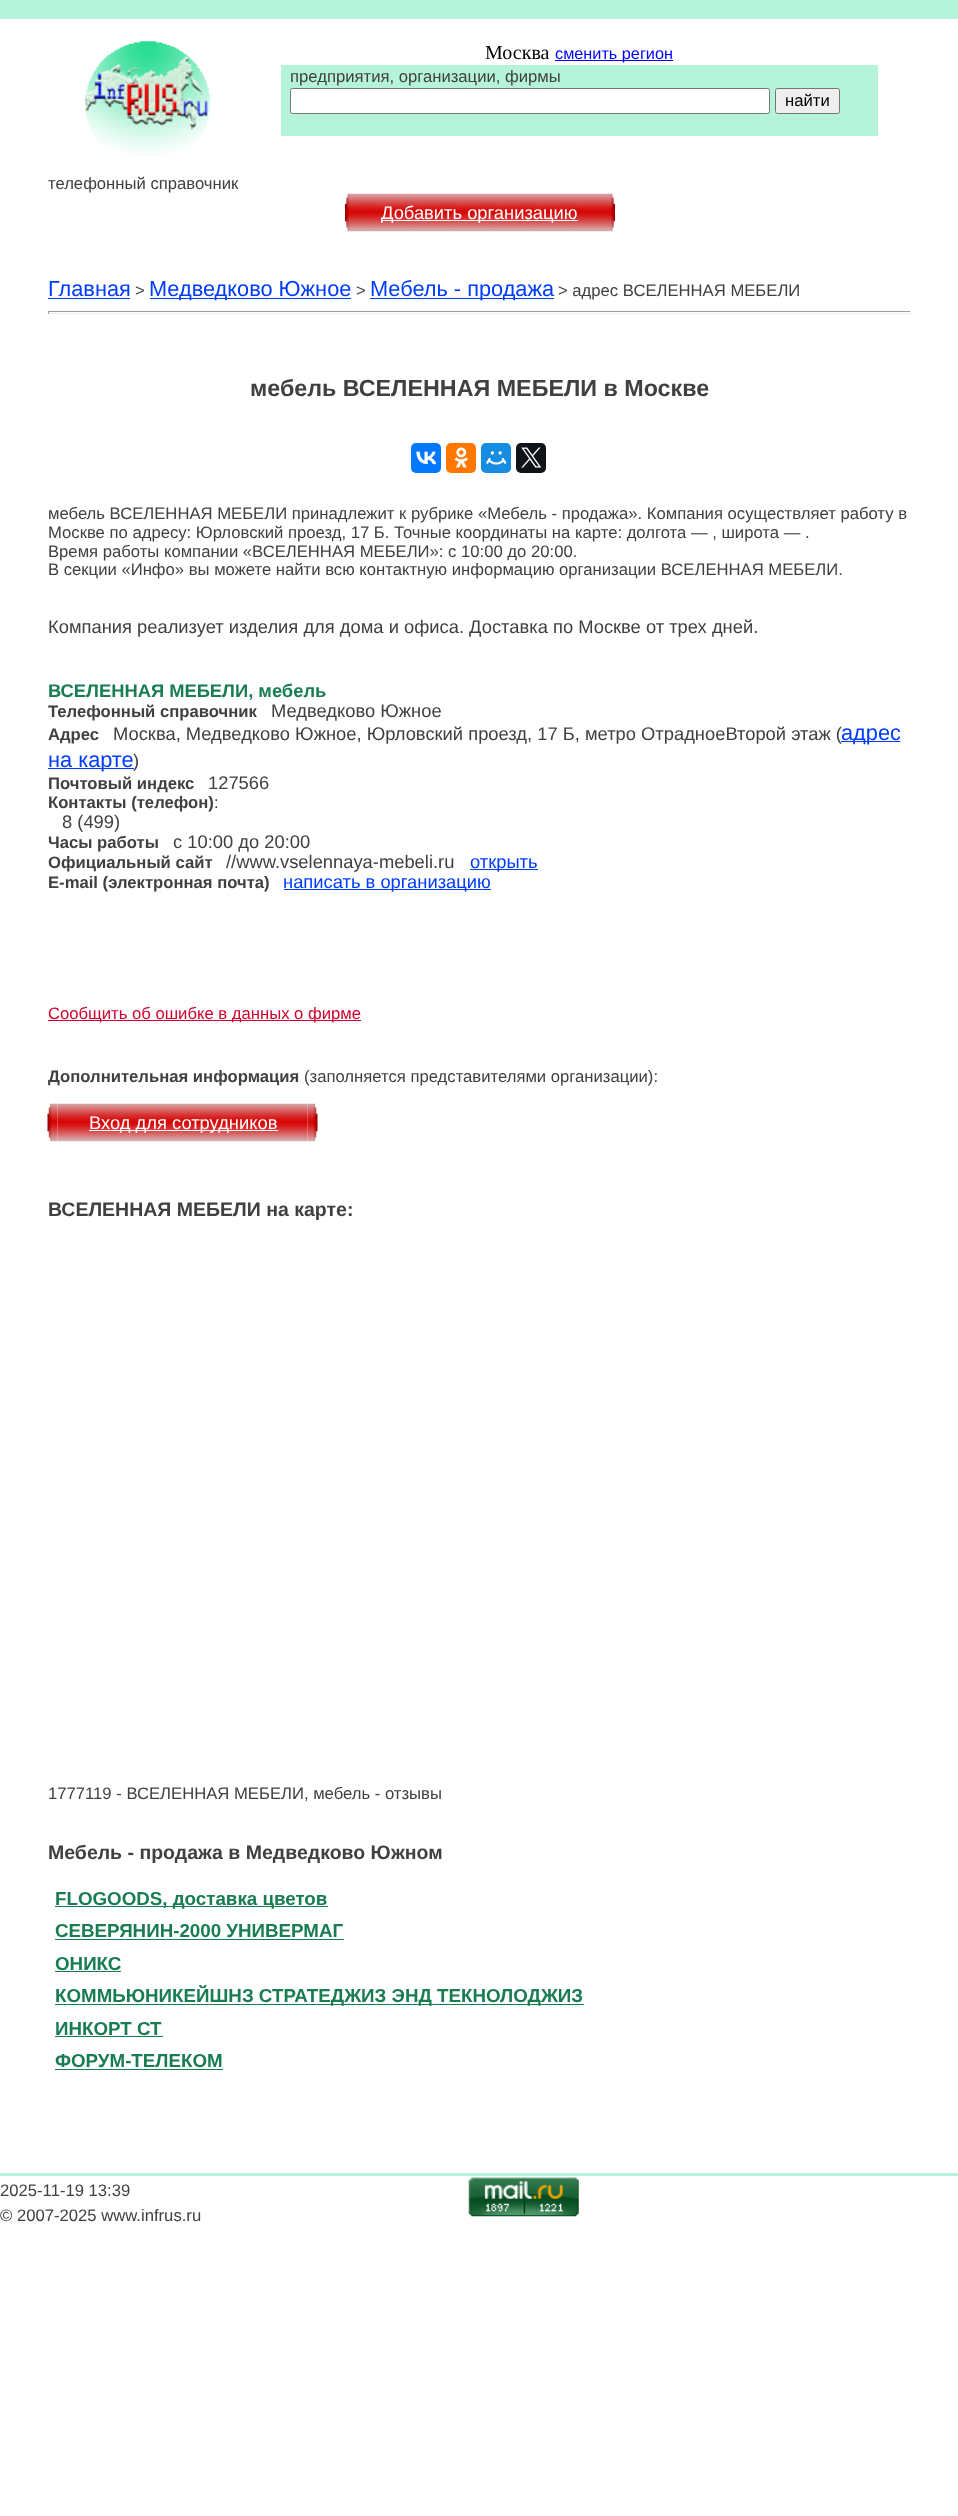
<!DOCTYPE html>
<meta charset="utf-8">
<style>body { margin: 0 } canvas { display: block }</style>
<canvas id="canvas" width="958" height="2516"></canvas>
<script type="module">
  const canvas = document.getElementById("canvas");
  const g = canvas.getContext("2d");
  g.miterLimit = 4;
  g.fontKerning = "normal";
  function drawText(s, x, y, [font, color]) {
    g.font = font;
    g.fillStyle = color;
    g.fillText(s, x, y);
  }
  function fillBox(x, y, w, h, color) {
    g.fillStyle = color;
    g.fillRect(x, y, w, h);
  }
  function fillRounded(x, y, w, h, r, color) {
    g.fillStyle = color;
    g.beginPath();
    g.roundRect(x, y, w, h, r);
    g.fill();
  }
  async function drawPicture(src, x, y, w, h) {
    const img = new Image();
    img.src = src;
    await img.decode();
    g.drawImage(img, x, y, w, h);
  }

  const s1 = ["20px Liberation Serif", "#000000"];
  const s2 = ["16.25px Liberation Sans", "#0000FF"];
  const s3 = ["16.67px Liberation Sans", "#404040"];
  const s4 = ["16.67px Liberation Sans", "#000000"];
  const s5 = ["18.35px Liberation Sans", "#FFFFFF"];
  const s6 = ["21.75px Liberation Sans", "#003CFF"];
  const s7 = ["bold 23.3px Liberation Sans", "#404040"];
  const s8 = ["18.35px Liberation Sans", "#404040"];
  const s9 = ["bold 18.35px Liberation Sans", "#197C53"];
  const s10 = ["bold 16.67px Liberation Sans", "#404040"];
  const s11 = ["18.35px Liberation Sans", "#003CFF"];
  const s12 = ["16.67px Liberation Sans", "#D0022D"];
  const s13 = ["bold 19.5px Liberation Sans", "#404040"];
  const s14 = ["bold 18.75px Liberation Sans", "#197C53"];

  fillBox(0, 0, 958, 2516, "#FFFFFF");
  fillBox(0, 0, 958, 19, "#B5F3DA");
  await drawPicture("pic1.png", 85, 41, 125, 115);
  drawText("Москва", 485, 59, s1);
  fillBox(555, 60, 118, 1, "#0000FF");
  drawText("сменить регион", 555, 59, s2);
  fillBox(281, 65, 597, 49, "#B5F3DA");
  drawText("предприятия, организации, фирмы", 290, 82, s3);
  g.fillStyle = "#FFFFFF";
  g.beginPath();
  g.roundRect(290.5, 88.5, 479, 25, 2);
  g.fill();
  g.strokeStyle = "#767676";
  g.stroke();
  g.fillStyle = "#EFEFEF";
  g.beginPath();
  g.roundRect(775.5, 88.5, 64, 25, 2);
  g.fill();
  g.stroke();
  drawText("найти", 785, 106, s4);
  fillBox(281, 114, 597, 22, "#B5F3DA");
  drawText("телефонный справочник", 48, 189, s3);
  await drawPicture("pic2.png", 345, 193, 10, 39);
  await drawPicture("pic3.png", 355, 193, 250, 39);
  fillBox(381, 220, 197, 1, "#FFFFFF");
  drawText("Добавить организацию", 381, 219, s5);
  await drawPicture("pic4.png", 605, 193, 10, 39);
  drawText("Главная", 48, 296, s6);
  fillBox(48, 298, 82, 1, "#003CFF");
  drawText(">", 135, 296, s3);
  fillBox(150, 298, 201, 1, "#003CFF");
  drawText("Медведково Южное", 149, 296, s6);
  drawText(">", 356, 296, s3);
  fillBox(370, 298, 184, 1, "#003CFF");
  drawText("Мебель - продажа", 370, 296, s6);
  drawText("> адрес ВСЕЛЕННАЯ МЕБЕЛИ", 558, 296, s3);
  fillBox(48, 311, 863, 1, "#9F9F9F");
  fillBox(910, 311, 1, 3, "#EEEEEE");
  fillBox(48, 313, 863, 1, "#EEEEEE");
  fillBox(48, 311, 1, 3, "#9F9F9F");
  drawText("мебель ВСЕЛЕННАЯ МЕБЕЛИ в Москве", 250, 396, s7);
  fillRounded(411, 443, 30, 30, 5, "#0077FF");
  await drawPicture("pic5.png", 416, 451, 21, 14);
  fillRounded(446, 443, 30, 30, 5, "#FF7700");
  await drawPicture("pic6.png", 454, 447, 14, 21);
  fillRounded(481, 443, 30, 30, 5, "#168DE2");
  await drawPicture("pic7.png", 486, 451, 21, 14);
  fillRounded(516, 443, 30, 30, 5, "#0F1419");
  await drawPicture("pic8.png", 521, 447, 21, 21);
  drawText("мебель ВСЕЛЕННАЯ МЕБЕЛИ принадлежит к рубрике «Мебель - продажа». Компания осуществляет работу в", 48, 519, s3);
  drawText("Москве по адресу: Юрловский проезд, 17 Б. Точные координаты на карте: долгота — , широта — .", 48, 538, s3);
  drawText("Время работы компании «ВСЕЛЕННАЯ МЕБЕЛИ»: с 10:00 до 20:00.", 48, 557, s3);
  drawText("В секции «Инфо» вы можете найти всю контактную информацию организации ВСЕЛЕННАЯ МЕБЕЛИ.", 48, 575, s3);
  drawText("Компания реализует изделия для дома и офиса. Доставка по Москве от трех дней.", 48, 633, s8);
  drawText("ВСЕЛЕННАЯ МЕБЕЛИ, мебель", 48, 697, s9);
  drawText("Телефонный справочник", 48, 717, s10);
  drawText("Медведково Южное", 271, 717, s8);
  drawText("Адрес", 48, 740, s10);
  drawText("Москва, Медведково Южное, Юрловский проезд, 17 Б, метро ОтрадноеВторой этаж (", 113, 740, s8);
  fillBox(841, 741, 59, 1, "#003CFF");
  drawText("адрес", 841, 740, s6);
  fillBox(48, 768, 86, 1, "#003CFF");
  drawText("на карте", 48, 767, s6);
  drawText(")", 133, 767, s8);
  drawText("Почтовый индекс", 48, 789, s10);
  drawText("127566", 208, 789, s8);
  drawText("Контакты (телефон)", 48, 808, s10);
  drawText(":", 214, 808, s3);
  drawText("8 (499)", 62, 828, s8);
  drawText("Часы работы", 48, 848, s10);
  drawText("с 10:00 до 20:00", 173, 848, s8);
  drawText("Официальный сайт", 48, 868, s10);
  drawText("//www.vselennaya-mebeli.ru", 226, 868, s8);
  fillBox(470, 869, 68, 1, "#003CFF");
  drawText("открыть", 470, 868, s11);
  drawText("E-mail (электронная почта)", 48, 888, s10);
  fillBox(284, 889, 207, 1, "#003CFF");
  drawText("написать в организацию", 283, 888, s11);
  fillBox(48, 1020, 313, 1, "#D0022D");
  drawText("Сообщить об ошибке в данных о фирме", 48, 1019, s12);
  drawText("Дополнительная информация", 48, 1082, s10);
  drawText("(заполняется представителями организации):", 304, 1082, s3);
  await drawPicture("pic9.png", 47, 1103, 11, 39);
  await drawPicture("pic10.png", 57, 1103, 251, 39);
  fillBox(89, 1130, 189, 1, "#FFFFFF");
  drawText("Вход для сотрудников", 89, 1129, s5);
  await drawPicture("pic11.png", 307, 1103, 11, 39);
  drawText("ВСЕЛЕННАЯ МЕБЕЛИ на карте:", 48, 1216, s13);
  drawText("1777119 - ВСЕЛЕННАЯ МЕБЕЛИ, мебель - отзывы", 48, 1799, s3);
  drawText("Мебель - продажа в Медведково Южном", 48, 1859, s13);
  fillBox(55, 1906, 273, 1, "#197C53");
  drawText("FLOGOODS, доставка цветов", 55, 1905, s14);
  drawText("СЕВЕРЯНИН-2000 УНИВЕРМАГ", 55, 1937, s14);
  fillBox(55, 1939, 289, 1, "#197C53");
  drawText("ОНИКС", 55, 1970, s14);
  fillBox(55, 1971, 66, 1, "#197C53");
  fillBox(55, 2004, 529, 1, "#197C53");
  drawText("КОММЬЮНИКЕЙШНЗ СТРАТЕДЖИЗ ЭНД ТЕКНОЛОДЖИЗ", 55, 2002, s14);
  drawText("ИНКОРТ СТ", 55, 2035, s14);
  fillBox(55, 2036, 108, 1, "#197C53");
  drawText("ФОРУМ-ТЕЛЕКОМ", 55, 2067, s14);
  fillBox(55, 2069, 168, 1, "#197C53");
  fillBox(0, 2173, 958, 3, "#B5F3DA");
  drawText("2025-11-19 13:39", 0, 2196, s3);
  drawText("© 2007-2025 www.infrus.ru", 0, 2221, s3);
  await drawPicture("pic12.png", 468, 2177, 111, 40);
</script>
